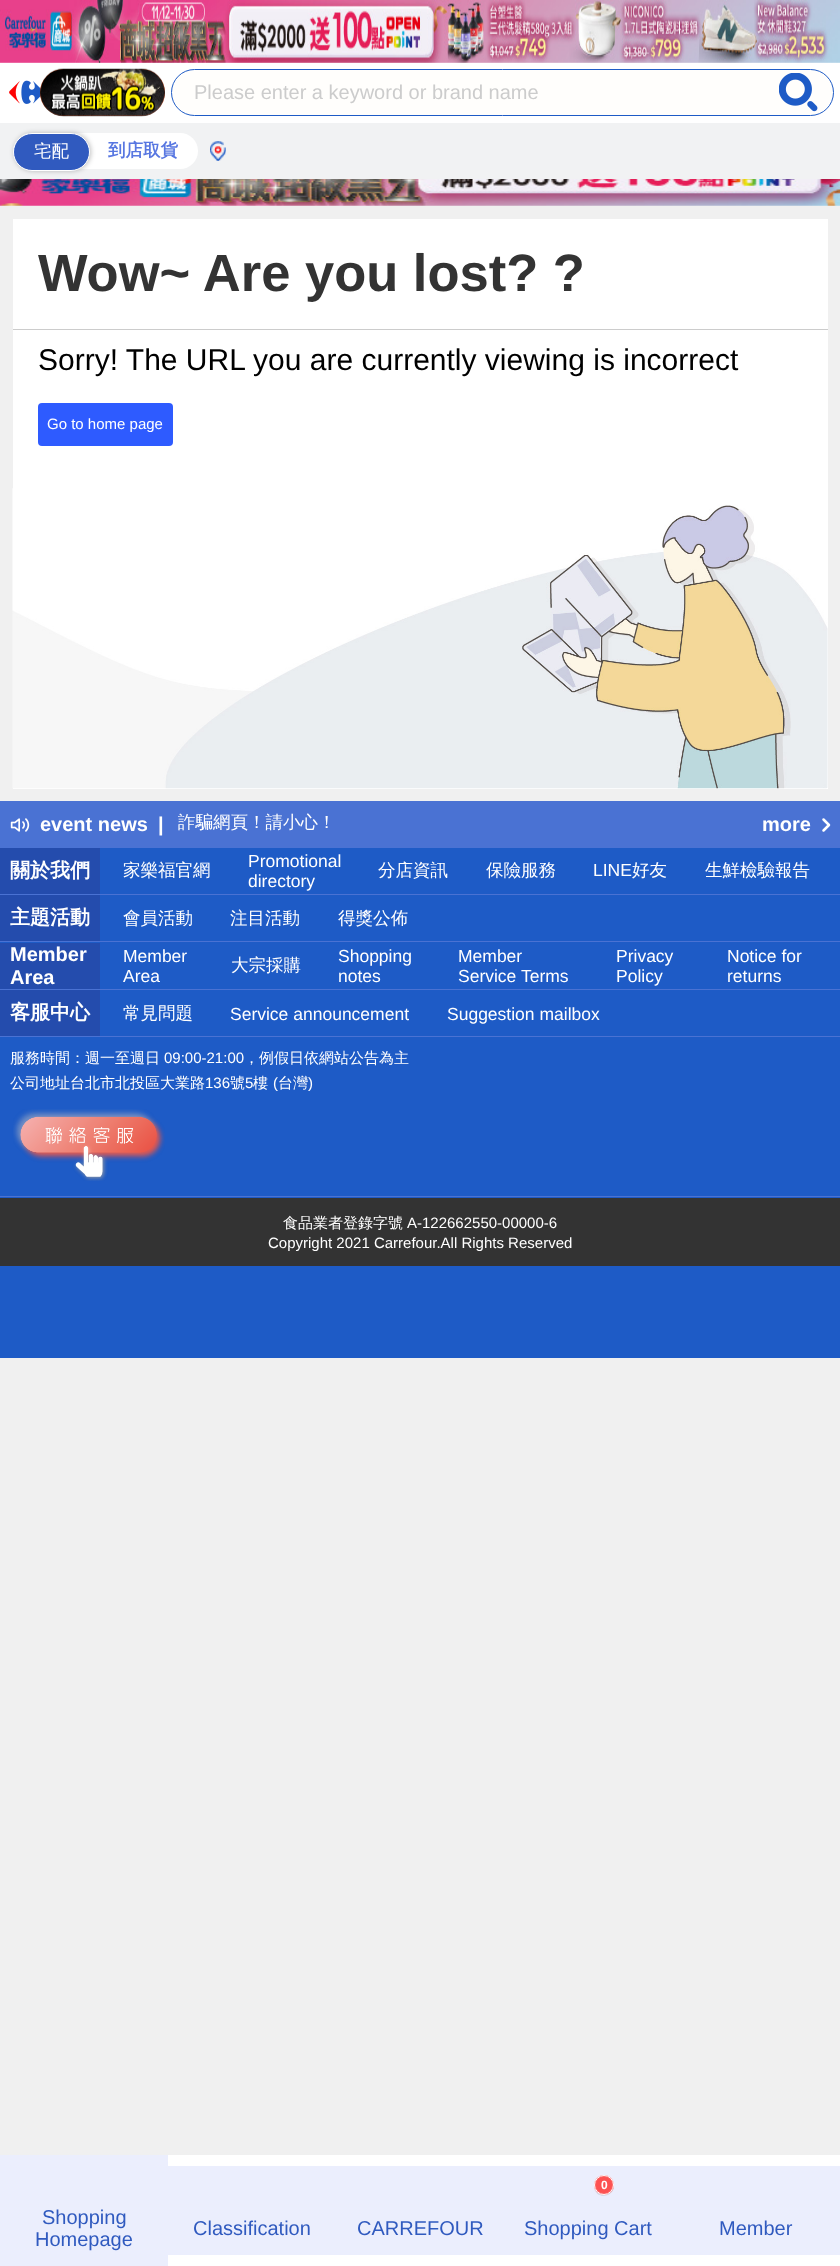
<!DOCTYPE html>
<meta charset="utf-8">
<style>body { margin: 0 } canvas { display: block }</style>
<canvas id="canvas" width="840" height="2266"></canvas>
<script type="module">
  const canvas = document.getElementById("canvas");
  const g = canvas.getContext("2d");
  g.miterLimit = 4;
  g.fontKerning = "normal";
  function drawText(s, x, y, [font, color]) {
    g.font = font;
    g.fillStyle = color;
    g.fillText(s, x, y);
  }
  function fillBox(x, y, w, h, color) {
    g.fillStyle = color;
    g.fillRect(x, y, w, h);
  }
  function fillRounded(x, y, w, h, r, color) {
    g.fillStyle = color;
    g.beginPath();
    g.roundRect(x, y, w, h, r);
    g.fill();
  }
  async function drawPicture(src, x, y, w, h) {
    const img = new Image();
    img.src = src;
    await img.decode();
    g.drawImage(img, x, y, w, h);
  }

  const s1 = ["20px Liberation Sans", "#CCCCCC"];
  const s2 = ["500 17.5px WenQuanYi Zen Hei", "#FFFFFF"];
  const s3 = ["bold 17.5px WenQuanYi Zen Hei", "#5877E1"];
  const s4 = ["bold 52.5px Liberation Sans", "#333333"];
  const s5 = ["30px Liberation Sans", "#000000"];
  const s6 = ["15px Liberation Sans", "#FFFFFF"];
  const s7 = ["bold 20px Liberation Sans", "#FFFFFF"];
  const s8 = ["bold 20px WenQuanYi Zen Hei", "#FFFFFF"];
  const s9 = ["17.5px Liberation Sans", "#FFFFFF"];
  const s10 = ["500 15px WenQuanYi Zen Hei", "#FFFFFF"];
  const s11 = ["20px Liberation Sans", "#305ABF"];
  const s12 = ["bold 12px Liberation Sans", "#FFFFFF"];

  fillBox(0, 0, 840, 2266, "#F0F0F0");
  fillBox(0, 62, 840, 61, "#FFFFFF");
  await drawPicture("pic1.png", 0, 0, 840, 63);
  await drawPicture("pic2.png", 9, 80, 34, 24);
  fillRounded(40, 69, 125, 47, 23.5, "#FC642E");
  await drawPicture("pic3.png", 40, 68, 125, 49);
  g.fillStyle = "#FFFEFC";
  g.beginPath();
  g.roundRect(171.5, 69.5, 662, 46, 23);
  g.fill();
  g.strokeStyle = "#1E5BC6";
  g.stroke();
  drawText("Please enter a keyword or brand name", 194, 99, s1);
  await drawPicture("pic4.png", 779, 73, 39, 39);
  fillBox(0, 123, 840, 56, "#F1F2F3");
  fillRounded(13, 133, 185, 36, 18, "#FFFFFF");
  await drawPicture("pic6.png", 0, 179, 840, 27);
  g.fillStyle = "rgba(0, 0, 0, 0.25)";
  g.filter = "blur(2.5px)";
  g.beginPath();
  g.roundRect(14, 133, 77, 38, 19);
  g.fill();
  g.filter = "none";
  g.fillStyle = "#305ABF";
  g.beginPath();
  g.roundRect(13.5, 133.5, 76, 37, 18.5);
  g.fill();
  g.strokeStyle = "#FFFFFF";
  g.stroke();
  drawText("宅配", 34, 157, s2);
  drawText("到店取貨", 108, 156, s3);
  await drawPicture("pic5.png", 210, 141, 16, 20);
  fillBox(13, 219, 815, 570, "#FFFFFF");
  await drawPicture("pic7.png", 12, 488, 816, 301);
  fillBox(13, 329, 815, 1, "#CCCCCC");
  drawText("Wow~ Are you lost? ?", 38, 291, s4);
  drawText("Sorry! The URL you are currently viewing is incorrect", 38, 370, s5);
  fillRounded(38, 403, 135, 43, 4, "#2E5BFF");
  drawText("Go to home page", 47, 429, s6);
  fillBox(0, 848, 840, 510, "#1E5BC6");
  fillBox(0, 801, 840, 47, "#4A72D3");
  await drawPicture("pic8.png", 10, 818, 20, 14);
  drawText("event news", 40, 831, s7);
  drawText("|", 158, 831, s7);
  drawText("詐騙網頁！請小心！", 178, 828, s2);
  drawText("more", 762, 831, s7);
  g.beginPath();
  g.moveTo(823.5, 819.5);
  g.lineTo(829, 825);
  g.lineTo(823.5, 830.5);
  g.lineWidth = 2.5;
  g.lineCap = "round";
  g.lineJoin = "round";
  g.stroke();
  fillBox(0, 894, 840, 1, "#4A72D3");
  fillBox(0, 848, 100, 46, "#244CAD");
  drawText("關於我們", 10, 877, s8);
  drawText("家樂福官網", 123, 876, s2);
  drawText("Promotional", 248, 867, s9);
  drawText("directory", 248, 887, s9);
  drawText("分店資訊", 378, 876, s2);
  drawText("保險服務", 486, 876, s2);
  drawText("LINE", 593, 876, s9);
  drawText("好友", 632, 876, s2);
  drawText("生鮮檢驗報告", 705, 876, s2);
  fillBox(0, 941, 840, 1, "#4A72D3");
  fillBox(0, 895, 100, 46, "#244CAD");
  drawText("主題活動", 10, 924, s8);
  drawText("會員活動", 123, 924, s2);
  drawText("注目活動", 230, 924, s2);
  drawText("得獎公佈", 338, 924, s2);
  fillBox(0, 989, 840, 1, "#4A72D3");
  fillBox(0, 943, 100, 46, "#244CAD");
  drawText("Member", 10, 961, s7);
  drawText("Area", 10, 984, s7);
  drawText("Member", 123, 962, s9);
  drawText("Area", 123, 982, s9);
  drawText("大宗採購", 231, 971, s2);
  drawText("Shopping", 338, 962, s9);
  drawText("notes", 338, 982, s9);
  drawText("Member", 458, 962, s9);
  drawText("Service Terms", 458, 982, s9);
  drawText("Privacy", 616, 962, s9);
  drawText("Policy", 616, 982, s9);
  drawText("Notice for", 727, 962, s9);
  drawText("returns", 727, 982, s9);
  fillBox(0, 1036, 840, 1, "#4A72D3");
  fillBox(0, 990, 100, 46, "#244CAD");
  drawText("客服中心", 10, 1019, s8);
  drawText("常見問題", 123, 1019, s2);
  drawText("Service announcement", 230, 1020, s9);
  drawText("Suggestion mailbox", 447, 1020, s9);
  fillBox(0, 1196, 840, 1, "#4A72D3");
  drawText("服務時間：週一至週日", 10, 1063, s10);
  drawText("09:00-21:00", 164, 1063, s6);
  drawText("，例假日依網站公告為主", 244, 1063, s10);
  drawText("公司地址台北市北投區大業路", 10, 1088, s10);
  drawText("136", 205, 1088, s6);
  drawText("號", 230, 1088, s10);
  drawText("5", 245, 1088, s6);
  drawText("樓", 253, 1088, s10);
  drawText("(", 273, 1088, s6);
  drawText("台灣", 278, 1088, s10);
  drawText(")", 308, 1088, s6);
  await drawPicture("pic9.png", 13, 1109, 152, 72);
  fillBox(0, 1198, 840, 68, "#333333");
  drawText("食品業者登錄字號", 283, 1228, s10);
  drawText("A-122662550-00000-6", 407, 1228, s6);
  drawText("Copyright 2021 Carrefour.All Rights Reserved", 268, 1248, s6);
  fillBox(168, 2155, 672, 111, "#FFFFFF");
  fillBox(0, 2155, 168, 111, "#EBEEFD");
  drawText("Shopping", 42, 2224, s11);
  drawText("Homepage", 35, 2246, s11);
  fillBox(168, 2166, 672, 89, "#EBEEFD");
  drawText("Classification", 193, 2235, s11);
  drawText("CARREFOUR", 357, 2235, s11);
  g.fillStyle = "#CFD1DF";
  g.beginPath();
  g.moveTo(594, 2188);
  g.bezierCurveTo(597, 2201.5, 617.5, 2196, 613.5, 2183);
  g.bezierCurveTo(616, 2195.5, 598, 2200, 594, 2188);
  g.closePath();
  g.fill();
  g.fillStyle = "#FD5151";
  g.beginPath();
  g.arc(604, 2185, 10, 0, Math.PI * 2);
  g.fill();
  g.beginPath();
  g.arc(604, 2185, 8.5, 0, Math.PI * 2);
  g.strokeStyle = "#FD6262";
  g.lineWidth = 1;
  g.stroke();
  g.beginPath();
  g.arc(604, 2185, 9.5, 0, Math.PI * 2);
  g.strokeStyle = "#FFFFFF";
  g.stroke();
  drawText("0", 601, 2189, s12);
  drawText("Shopping Cart", 524, 2235, s11);
  drawText("Member", 719, 2235, s11);
</script>
